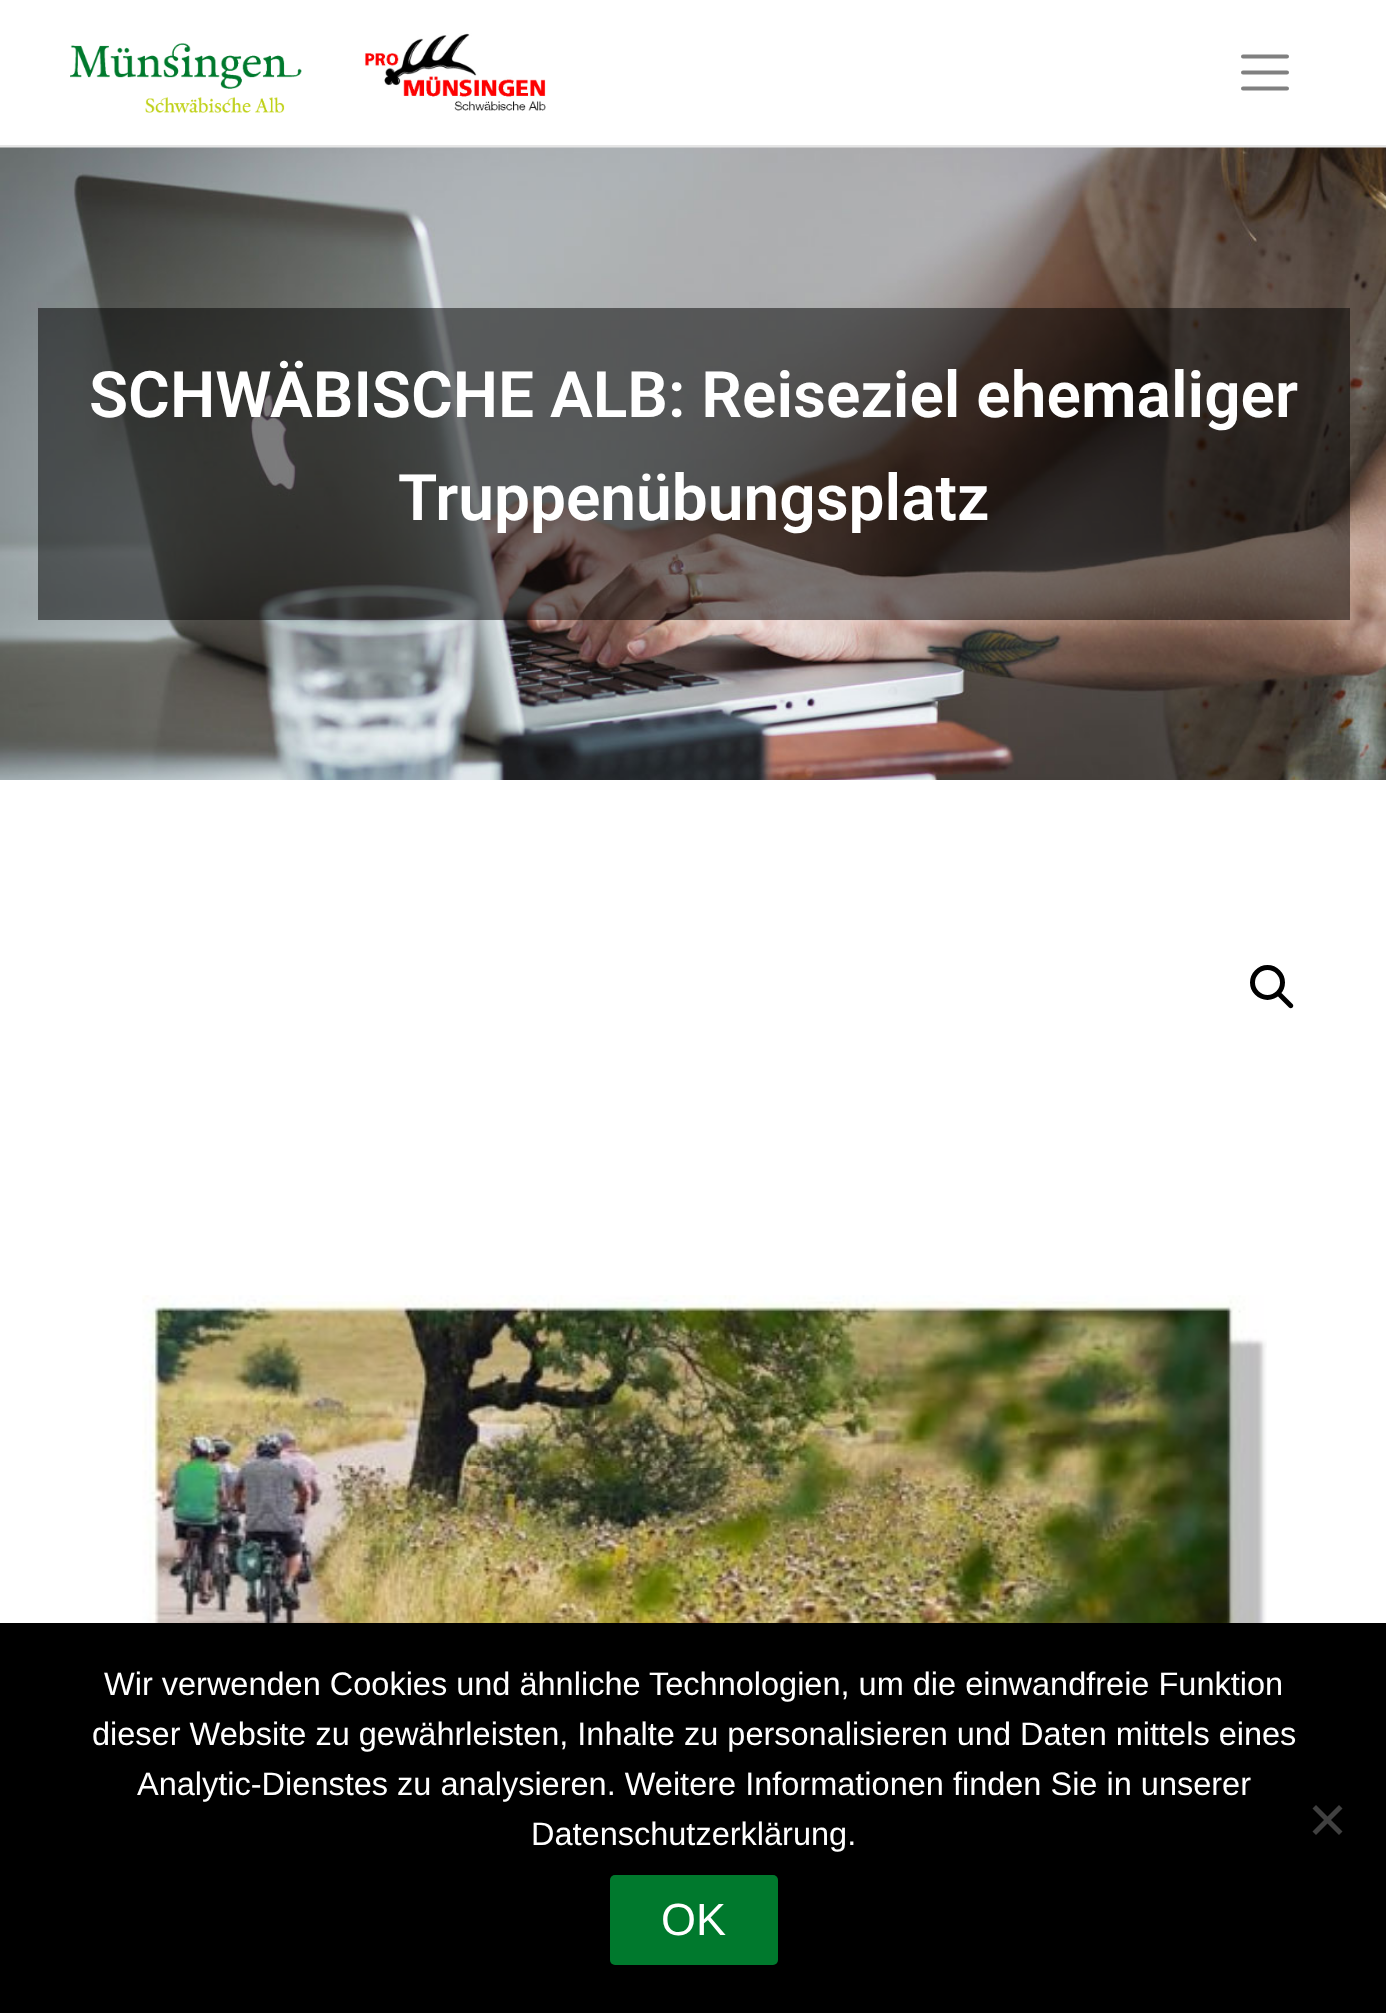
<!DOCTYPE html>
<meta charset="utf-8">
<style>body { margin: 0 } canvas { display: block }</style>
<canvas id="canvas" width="1386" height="2013"></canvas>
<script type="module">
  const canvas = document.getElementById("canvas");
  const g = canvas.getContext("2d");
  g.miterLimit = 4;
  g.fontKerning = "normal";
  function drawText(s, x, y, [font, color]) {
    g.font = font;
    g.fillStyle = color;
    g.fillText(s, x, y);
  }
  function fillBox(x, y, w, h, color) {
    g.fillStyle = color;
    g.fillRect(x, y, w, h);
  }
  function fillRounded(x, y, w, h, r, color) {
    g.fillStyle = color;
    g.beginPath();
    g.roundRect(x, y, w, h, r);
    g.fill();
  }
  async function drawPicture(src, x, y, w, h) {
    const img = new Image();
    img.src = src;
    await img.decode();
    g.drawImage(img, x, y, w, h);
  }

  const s1 = ["600 64px Roboto", "#FFFFFF"];
  const s2 = ["32.5px Liberation Sans", "#FFFFFF"];
  const s3 = ["45px Liberation Sans", "#FFFFFF"];

  fillBox(0, 0, 1386, 2013, "#FFFFFF");
  fillBox(0, 145, 1386, 3, "#E6E6E6");
  await drawPicture("pic1.png", 70, 33, 476, 80);
  g.beginPath();
  g.moveTo(1243, 56.5);
  g.lineTo(1287, 56.5);
  g.moveTo(1243, 72.5);
  g.lineTo(1287, 72.5);
  g.moveTo(1243, 88.5);
  g.lineTo(1287, 88.5);
  g.strokeStyle = "#808080";
  g.lineWidth = 4;
  g.lineCap = "round";
  g.stroke();
  await drawPicture("pic2.png", 0, 147, 1386, 633);
  fillBox(38, 308, 1312, 312, "rgba(0, 0, 0, 0.5)");
  drawText("SCHWÄBISCHE ALB: Reiseziel ehemaliger", 89, 417, s1);
  drawText("Truppenübungsplatz", 398, 520, s1);
  g.beginPath();
  g.arc(1267.5, 982.5, 15, 0, Math.PI * 2);
  g.strokeStyle = "#000000";
  g.lineWidth = 5;
  g.stroke();
  g.fillStyle = "#000000";
  g.beginPath();
  g.moveTo(1278.5, 993.5);
  g.bezierCurveTo(1279.5, 992.5, 1281, 992.5, 1282, 993.5);
  g.lineTo(1292.5, 1004);
  g.bezierCurveTo(1293.5, 1005, 1293.5, 1006.5, 1292.5, 1007.5);
  g.bezierCurveTo(1291.5, 1008.5, 1290, 1008.5, 1289, 1007.5);
  g.lineTo(1278.5, 997);
  g.bezierCurveTo(1277.5, 996, 1277.5, 994.5, 1278.5, 993.5);
  g.closePath();
  g.fill();
  await drawPicture("pic3.png", 142, 1295, 1125, 328);
  fillBox(0, 1623, 1386, 390, "#000000");
  drawText("Wir verwenden Cookies und ähnliche Technologien, um die einwandfreie Funktion", 104, 1695, s2);
  drawText("dieser Website zu gewährleisten, Inhalte zu personalisieren und Daten mittels eines", 92, 1745, s2);
  drawText("Analytic-Dienstes zu analysieren. Weitere Informationen finden Sie in unserer", 137, 1795, s2);
  drawText("Datenschutzerklärung.", 531, 1845, s2);
  g.fillStyle = "#404040";
  g.beginPath();
  g.moveTo(1339, 1805);
  g.lineTo(1342.5, 1808.5);
  g.lineTo(1316, 1835);
  g.lineTo(1312.5, 1831.5);
  g.closePath();
  g.fill();
  g.beginPath();
  g.moveTo(1312.5, 1808.5);
  g.lineTo(1316, 1805);
  g.lineTo(1342.5, 1831.5);
  g.lineTo(1339, 1835);
  g.closePath();
  g.fill();
  fillRounded(610, 1875, 168, 90, 5, "#00792D");
  drawText("OK", 661, 1935, s3);
</script>
